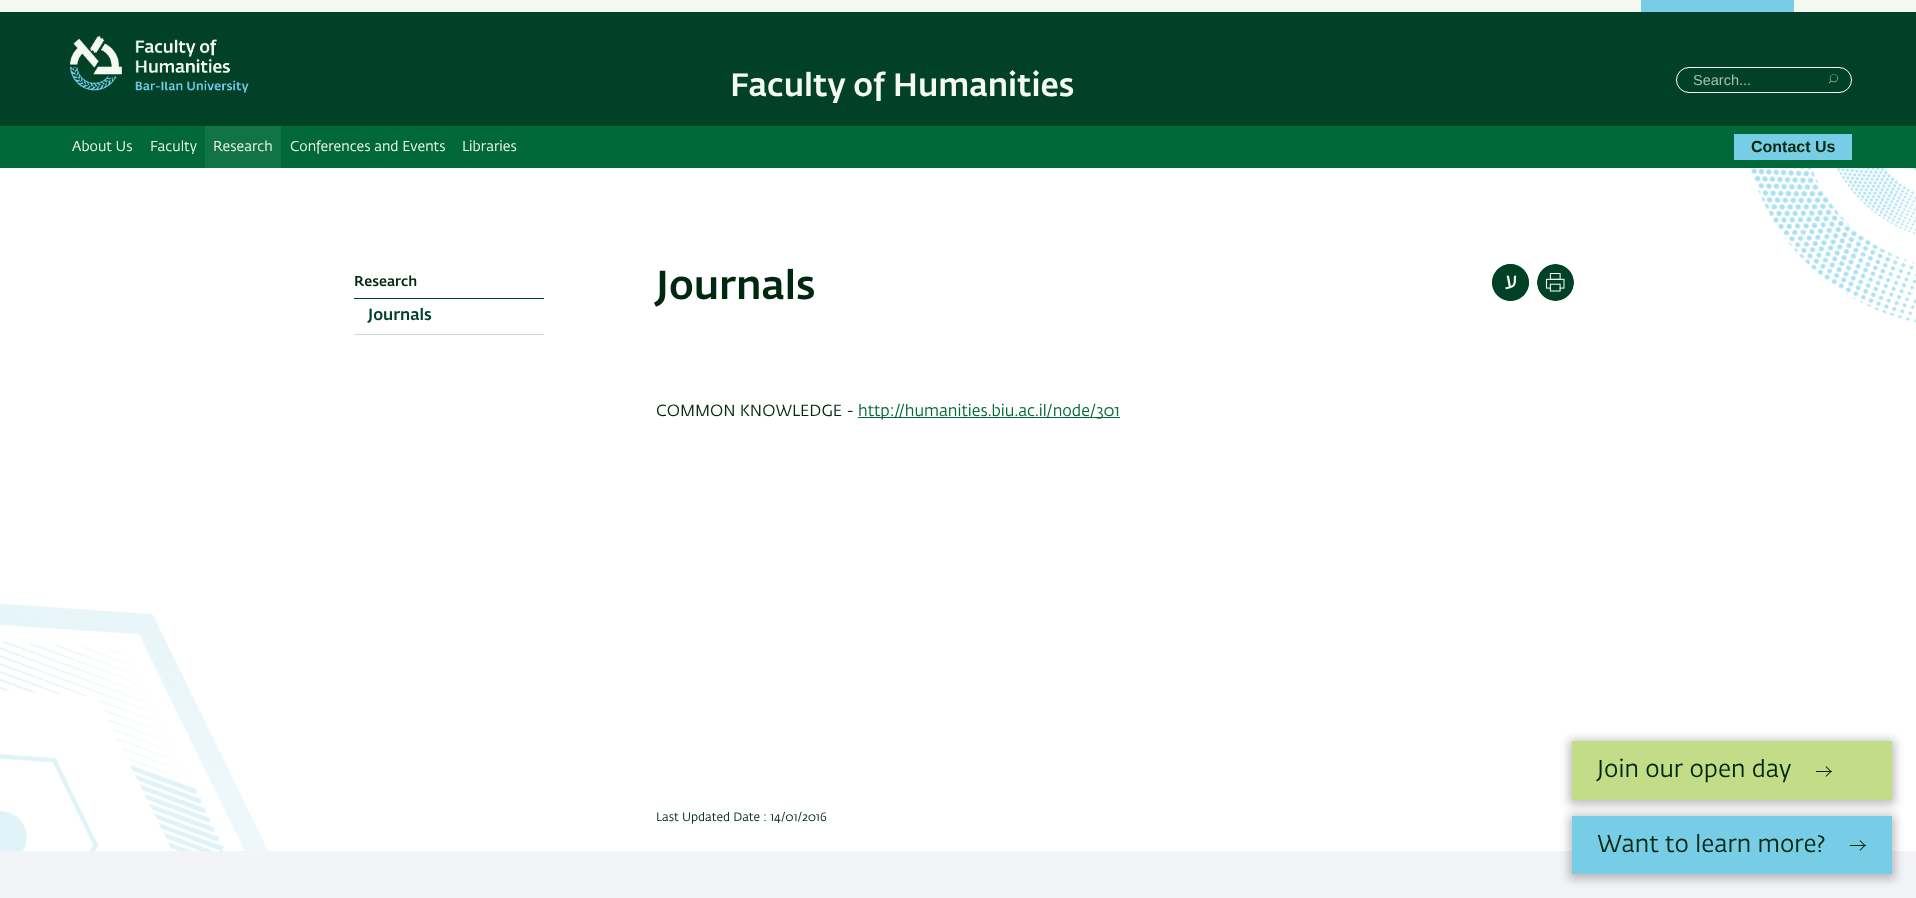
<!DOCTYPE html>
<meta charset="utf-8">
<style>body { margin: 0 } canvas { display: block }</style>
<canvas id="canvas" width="1916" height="898"></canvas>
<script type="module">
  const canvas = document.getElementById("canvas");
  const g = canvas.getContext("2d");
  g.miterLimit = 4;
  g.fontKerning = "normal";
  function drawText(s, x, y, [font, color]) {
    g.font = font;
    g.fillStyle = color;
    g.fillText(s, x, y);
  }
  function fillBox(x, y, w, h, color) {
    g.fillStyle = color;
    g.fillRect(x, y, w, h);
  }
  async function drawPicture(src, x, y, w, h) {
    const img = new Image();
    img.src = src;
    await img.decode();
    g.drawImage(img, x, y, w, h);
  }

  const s1 = ["500 32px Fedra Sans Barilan", "#F5FAF0"];
  const s2 = ["14.5px Liberation Sans", "#A8BEB6"];
  const s3 = ["14px Fedra Sans Barilan", "#F5FAF0"];
  const s4 = ["bold 16px Liberation Sans", "#00280F"];
  const s5 = ["500 14px Fedra Sans Barilan", "#00280F"];
  const s6 = ["500 16px Fedra Sans Barilan", "#004128"];
  const s7 = ["500 40px Fedra Sans Barilan", "#00280F"];
  const s8 = ["16px Fedra Sans Barilan", "#00280F"];
  const s9 = ["16px Fedra Sans Barilan", "#006937"];
  const s10 = ["12px Fedra Sans Barilan", "#00280F"];
  const s11 = ["24px Fedra Sans Barilan", "#00280F"];

  fillBox(0, 0, 1916, 898, "#FFFFFF");
  fillBox(0, 0, 1916, 12, "#F5FAF0");
  fillBox(1641, 0, 153, 12, "#78CDE6");
  fillBox(0, 12, 1916, 114, "#004128");
  await drawPicture("pic1.png", 70, 36, 179, 57);
  drawText("Faculty of Humanities", 730, 96, s1);
  g.beginPath();
  g.roundRect(1676.5, 67.5, 175, 25, 12.5);
  g.strokeStyle = "#FFFFFF";
  g.stroke();
  drawText("Search...", 1693, 85, s2);
  await drawPicture("pic2.png", 1829, 72, 9, 12);
  fillBox(0, 126, 1916, 42, "#006937");
  drawText("About Us", 72, 151, s3);
  drawText("Faculty", 150, 151, s3);
  fillBox(205, 126, 76, 42, "#127445");
  drawText("Research", 213, 151, s3);
  drawText("Conferences and Events", 290, 151, s3);
  drawText("Libraries", 462, 151, s3);
  fillBox(1734, 134, 118, 26, "#78CDE6");
  drawText("Contact Us", 1751, 152, s4);
  await drawPicture("pic3.png", 1751, 168, 165, 155);
  fillBox(354, 298, 190, 1, "#004128");
  drawText("Research", 354, 286, s5);
  fillBox(354, 334, 190, 1, "#CCD9D4");
  drawText("Journals", 368, 320, s6);
  drawText("Journals", 656, 299, s7);
  g.fillStyle = "#006937";
  g.beginPath();
  g.arc(1510.5, 282.5, 18.5, 0, Math.PI * 2);
  g.fill();
  await drawPicture("pic4.png", 1492, 264, 37, 37);
  await drawPicture("pic5.png", 1537, 264, 37, 37);
  drawText("COMMON KNOWLEDGE -", 656, 416, s8);
  fillBox(858, 417, 262, 1, "#006937");
  drawText("http://humanities.biu.ac.il/node/301", 858, 416, s9);
  await drawPicture("pic6.png", 0, 603, 269, 248);
  drawText("Last Updated Date : 14/01/2016", 656, 821, s10);
  fillBox(0, 851, 1916, 47, "#F3F4F8");
  g.fillStyle = "rgba(0, 0, 0, 0.25)";
  g.filter = "blur(5px)";
  g.beginPath();
  g.rect(1569, 740, 326, 65);
  g.fill();
  g.filter = "none";
  fillBox(1572, 741, 320, 59, "#C3DC87");
  drawText("Join our open day", 1597, 777, s11);
  fillBox(1816, 771, 16, 1, "#00280F");
  await drawPicture("pic7.png", 1825, 766, 6, 11);
  g.fillStyle = "rgba(0, 0, 0, 0.25)";
  g.filter = "blur(5px)";
  g.beginPath();
  g.rect(1569, 815, 326, 64);
  g.fill();
  g.filter = "none";
  fillBox(1572, 816, 320, 58, "#78CDE6");
  drawText("Want to learn more?", 1597, 852, s11);
  fillBox(1850, 845, 16, 1, "#00280F");
  await drawPicture("pic8.png", 1859, 840, 6, 11);
</script>
